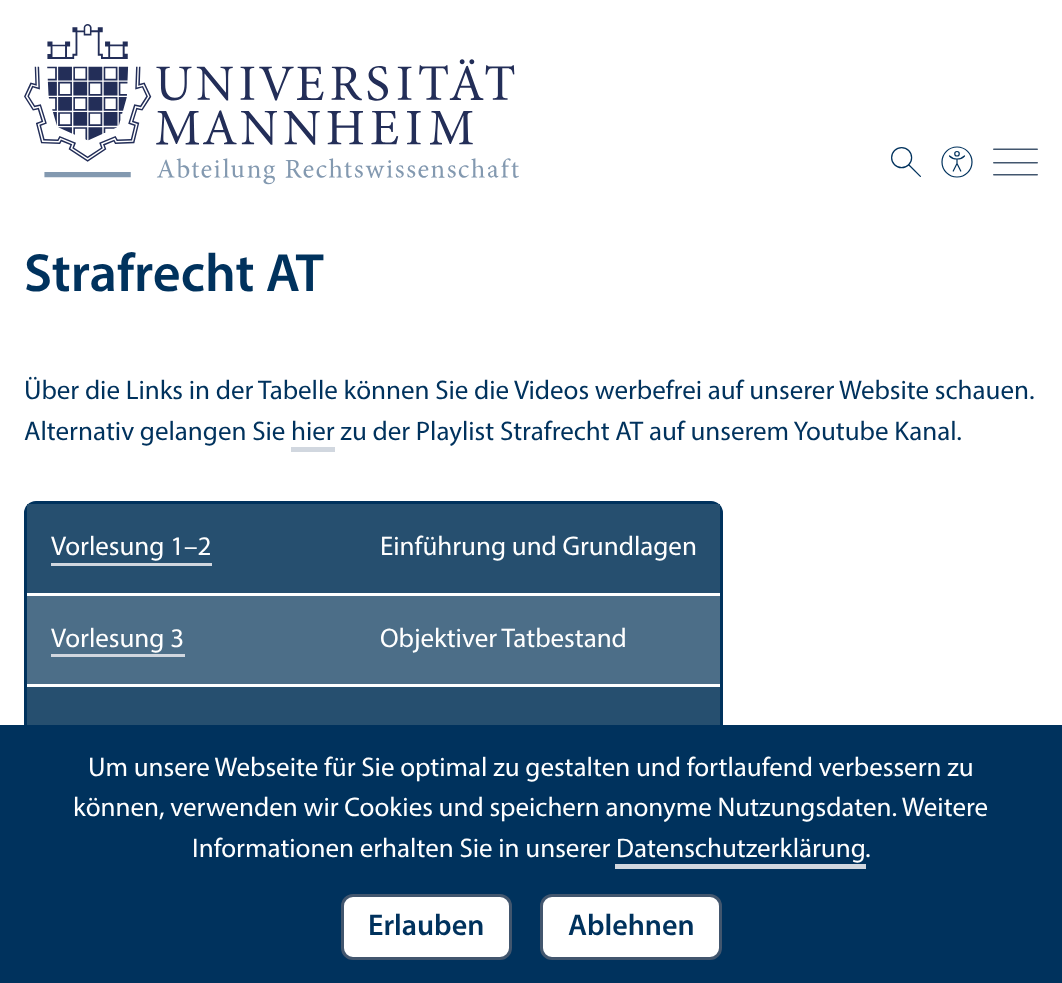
<!DOCTYPE html>
<meta charset="utf-8">
<style>body { margin: 0 } canvas { display: block }</style>
<canvas id="canvas" width="1062" height="983"></canvas>
<script type="module">
  const canvas = document.getElementById("canvas");
  const g = canvas.getContext("2d");
  g.miterLimit = 4;
  g.fontKerning = "normal";
  function drawText(s, x, y, [font, color]) {
    g.font = font;
    g.fillStyle = color;
    g.fillText(s, x, y);
  }
  function fillBox(x, y, w, h, color) {
    g.fillStyle = color;
    g.fillRect(x, y, w, h);
  }
  async function drawPicture(src, x, y, w, h) {
    const img = new Image();
    img.src = src;
    await img.decode();
    g.drawImage(img, x, y, w, h);
  }

  const s1 = ["600 54px Myriad", "#00325D"];
  const s2 = ["27px myriad", "#00325D"];
  const s3 = ["27px myriad", "#FFFFFF"];
  const s4 = ["600 30px Myriad", "#00325D"];

  fillBox(0, 0, 1062, 983, "#FFFFFF");
  await drawPicture("pic1.png", 24, 24, 495, 161);
  await drawPicture("pic2.png", 891, 147, 30, 30);
  await drawPicture("pic3.png", 941, 146, 32, 32);
  await drawPicture("pic4.png", 993, 148, 45, 28);
  drawText("Strafrecht AT", 24, 291, s1);
  drawText("Über die Links in der Tabelle können Sie die Videos werbefrei auf unserer Website schauen.", 24, 399, s2);
  drawText("Alternativ gelangen Sie hier zu der Playlist Strafrecht AT auf unserem Youtube Kanal.", 24, 440, s2);
  fillBox(291, 447, 44, 5, "#D1D7DF");
  g.beginPath();
  g.roundRect(25.5, 502.5, 696, 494, 10.5);
  g.strokeStyle = "#00325D";
  g.lineWidth = 3;
  g.stroke();
  fillBox(27, 504, 693, 89, "#264F6F");
  drawText("Vorlesung 1–2", 51, 555, s3);
  fillBox(51, 563, 161, 3, "#D1D7DF");
  drawText("Einführung und Grundlagen", 380, 555, s3);
  fillBox(27, 596, 693, 88, "#4C6E88");
  drawText("Vorlesung 3", 51, 647, s3);
  fillBox(51, 654, 134, 3, "#D1D7DF");
  drawText("Objektiver Tatbestand", 380, 647, s3);
  fillBox(27, 687, 693, 38, "#264F6F");
  fillBox(0, 725, 1062, 258, "#00325D");
  drawText("Um unsere Webseite für Sie optimal zu gestalten und fortlaufend verbessern zu", 88, 776, s3);
  drawText("können, verwenden wir Cookies und speichern anonyme Nutzungsdaten. Weitere", 73, 816, s3);
  drawText("Informationen erhalten Sie in unserer Datenschutzerklärung", 192, 857, s3);
  drawText(".", 865, 857, s3);
  fillBox(615, 864, 251, 5, "#D1D7DF");
  g.fillStyle = "#FFFFFF";
  g.beginPath();
  g.roundRect(342.5, 895.5, 168, 63, 10.5);
  g.fill();
  g.strokeStyle = "#42566E";
  g.stroke();
  drawText("Erlauben", 368, 935, s4);
  g.fillStyle = "#FFFFFF";
  g.beginPath();
  g.roundRect(541.5, 895.5, 179, 63, 10.5);
  g.fill();
  g.stroke();
  drawText("Ablehnen", 568, 935, s4);
</script>
